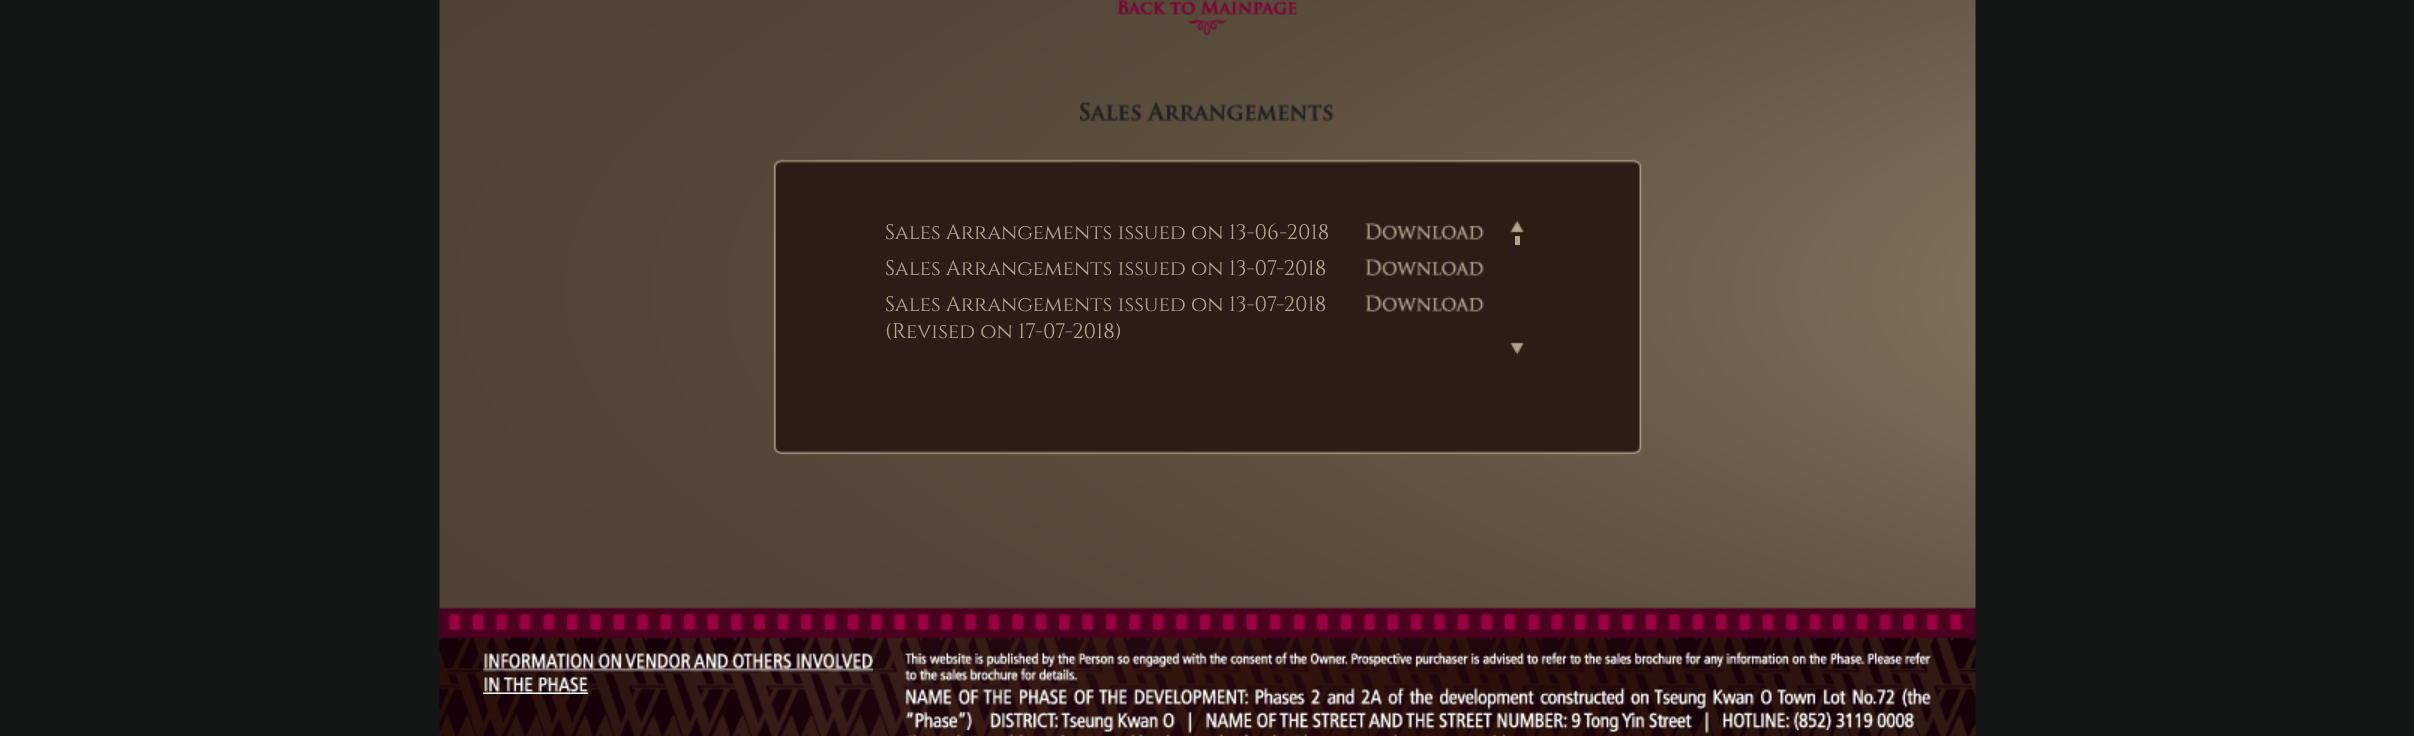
<!DOCTYPE html>
<meta charset="utf-8">
<style>body { margin: 0 } canvas { display: block }</style>
<canvas id="canvas" width="2414" height="736"></canvas>
<script type="module">
  const canvas = document.getElementById("canvas");
  const g = canvas.getContext("2d");
  g.miterLimit = 4;
  g.fontKerning = "normal";
  function drawText(s, x, y, [font, color]) {
    g.font = font;
    g.fillStyle = color;
    g.fillText(s, x, y);
  }
  function fillBox(x, y, w, h, color) {
    g.fillStyle = color;
    g.fillRect(x, y, w, h);
  }
  async function drawPicture(src, x, y, w, h) {
    const img = new Image();
    img.src = src;
    await img.decode();
    g.drawImage(img, x, y, w, h);
  }

  const s1 = ["21px Cinzel", "#B2A590"];

  fillBox(0, 0, 2414, 736, "#121716");
  await drawPicture("pic1.png", 439, 0, 1537, 736);
  await drawPicture("pic2.png", 1117, 0, 181, 36);
  await drawPicture("pic3.png", 1080, 101, 254, 21);
  await drawPicture("pic4.png", 773, 159, 869, 296);
  drawText("Sales Arrangements issued on 13-06-2018", 885, 239, s1);
  await drawPicture("pic5.png", 1365, 222, 119, 18);
  drawText("Sales Arrangements issued on 13-07-2018", 885, 275, s1);
  await drawPicture("pic5.png", 1365, 258, 119, 18);
  drawText("Sales Arrangements issued on 13-07-2018", 885, 311, s1);
  drawText("(Revised on 17-07-2018)", 885, 338, s1);
  await drawPicture("pic5.png", 1365, 294, 119, 18);
  await drawPicture("pic6.png", 1510, 220, 15, 13);
  fillBox(1515, 236, 5, 9, "#B2A590");
  await drawPicture("pic7.png", 1510, 342, 15, 13);
  await drawPicture("pic8.png", 904, 651, 1027, 85);
  await drawPicture("pic9.png", 483, 653, 390, 41);
</script>
